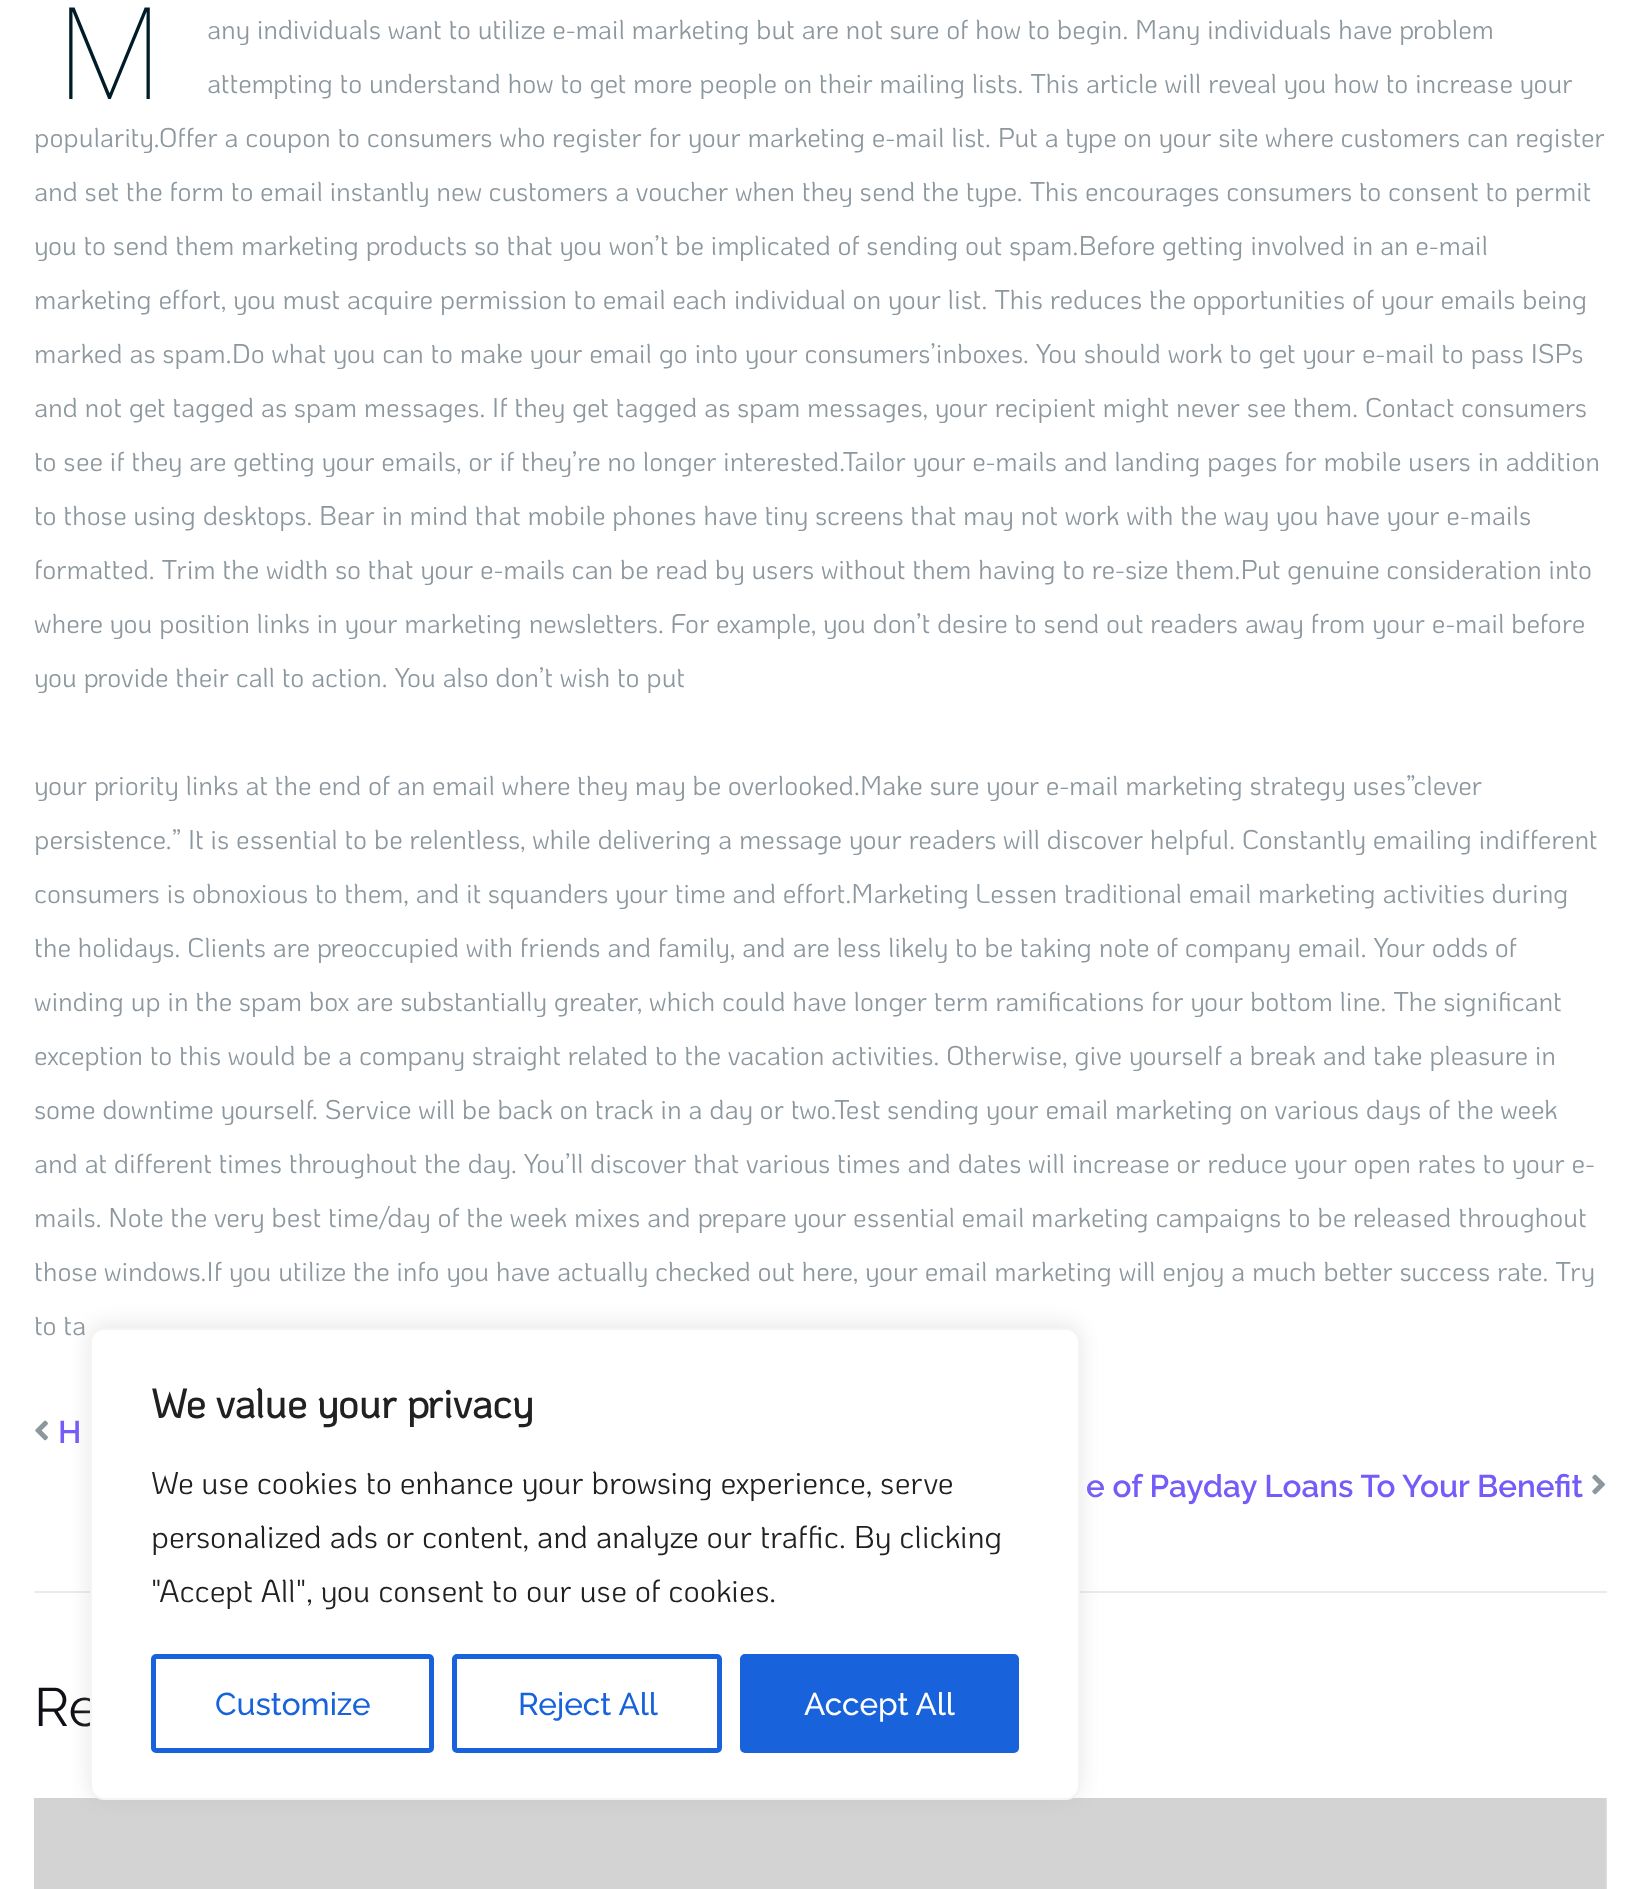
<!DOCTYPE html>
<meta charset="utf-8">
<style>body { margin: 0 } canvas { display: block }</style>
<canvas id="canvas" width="1639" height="1889"></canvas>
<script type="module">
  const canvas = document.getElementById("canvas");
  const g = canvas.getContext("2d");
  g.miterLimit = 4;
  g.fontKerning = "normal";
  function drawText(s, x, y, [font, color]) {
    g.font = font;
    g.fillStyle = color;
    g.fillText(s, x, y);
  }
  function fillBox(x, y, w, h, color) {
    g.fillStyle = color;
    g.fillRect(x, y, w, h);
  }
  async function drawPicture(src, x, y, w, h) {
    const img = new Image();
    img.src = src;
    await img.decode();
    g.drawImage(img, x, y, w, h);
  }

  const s1 = ["100 128px Noto Sans", "#001C28"];
  const s2 = ["27px KoHo", "#8C979E"];
  const s3 = ["600 31.5px Raleway", "#745CF9"];
  const s4 = ["54px Raleway", "#0E1015"];
  const s5 = ["bold 40.5px KoHo", "#212121"];
  const s6 = ["31.5px KoHo", "#212121"];
  const s7 = ["500 31.5px Raleway", "#1863DC"];
  const s8 = ["500 31.5px Raleway", "#FFFFFF"];

  fillBox(0, 0, 1639, 1889, "#FFFFFF");
  drawText("M", 56, 99, s1);
  drawText("any individuals want to utilize e-mail marketing but are not sure of how to begin. Many individuals have problem", 207, 39, s2);
  drawText("attempting to understand how to get more people on their mailing lists. This article will reveal you how to increase your", 207, 93, s2);
  drawText("popularity.Offer a coupon to consumers who register for your marketing e-mail list. Put a type on your site where customers can register", 34, 147, s2);
  drawText("and set the form to email instantly new customers a voucher when they send the type. This encourages consumers to consent to permit", 34, 201, s2);
  drawText("you to send them marketing products so that you won’t be implicated of sending out spam.Before getting involved in an e-mail", 34, 255, s2);
  drawText("marketing effort, you must acquire permission to email each individual on your list. This reduces the opportunities of your emails being", 34, 309, s2);
  drawText("marked as spam.Do what you can to make your email go into your consumers’inboxes. You should work to get your e-mail to pass ISPs", 34, 363, s2);
  drawText("and not get tagged as spam messages. If they get tagged as spam messages, your recipient might never see them. Contact consumers", 34, 417, s2);
  drawText("to see if they are getting your emails, or if they’re no longer interested.Tailor your e-mails and landing pages for mobile users in addition", 34, 471, s2);
  drawText("to those using desktops. Bear in mind that mobile phones have tiny screens that may not work with the way you have your e-mails", 34, 525, s2);
  drawText("formatted. Trim the width so that your e-mails can be read by users without them having to re-size them.Put genuine consideration into", 34, 579, s2);
  drawText("where you position links in your marketing newsletters. For example, you don’t desire to send out readers away from your e-mail before", 34, 633, s2);
  drawText("you provide their call to action. You also don’t wish to put", 34, 687, s2);
  drawText("your priority links at the end of an email where they may be overlooked.Make sure your e-mail marketing strategy uses”clever", 34, 795, s2);
  drawText("persistence.” It is essential to be relentless, while delivering a message your readers will discover helpful. Constantly emailing indifferent", 34, 849, s2);
  drawText("consumers is obnoxious to them, and it squanders your time and effort.Marketing Lessen traditional email marketing activities during", 34, 903, s2);
  drawText("the holidays. Clients are preoccupied with friends and family, and are less likely to be taking note of company email. Your odds of", 34, 957, s2);
  drawText("winding up in the spam box are substantially greater, which could have longer term ramifications for your bottom line. The significant", 34, 1011, s2);
  drawText("exception to this would be a company straight related to the vacation activities. Otherwise, give yourself a break and take pleasure in", 34, 1065, s2);
  drawText("some downtime yourself. Service will be back on track in a day or two.Test sending your email marketing on various days of the week", 34, 1119, s2);
  drawText("and at different times throughout the day. You’ll discover that various times and dates will increase or reduce your open rates to your e-", 34, 1173, s2);
  drawText("mails. Note the very best time/day of the week mixes and prepare your essential email marketing campaigns to be released throughout", 34, 1227, s2);
  drawText("those windows.If you utilize the info you have actually checked out here, your email marketing will enjoy a much better success rate. Try", 34, 1281, s2);
  drawText("to ta", 34, 1335, s2);
  await drawPicture("pic1.png", 35, 1420, 13, 21);
  drawText("H", 58, 1443, s3);
  drawText("e of Payday Loans To Your Benefit", 1086, 1497, s3);
  await drawPicture("pic2.png", 1592, 1474, 13, 21);
  fillBox(34, 1591, 1573, 2, "#EBEBEB");
  drawText("Re", 34, 1726, s4);
  await drawPicture("pic3.png", 34, 1798, 1573, 91);
  g.fillStyle = "rgba(172, 171, 171, 0.3)";
  g.filter = "blur(11px)";
  g.beginPath();
  g.roundRect(90, 1325, 990, 473, 14);
  g.fill();
  g.filter = "none";
  g.fillStyle = "#FFFFFF";
  g.beginPath();
  g.roundRect(91, 1329, 988, 470, 13);
  g.fill();
  g.strokeStyle = "#F4F4F4";
  g.lineWidth = 2;
  g.stroke();
  drawText("We value your privacy", 151, 1418, s5);
  drawText("We use cookies to enhance your browsing experience, serve", 151, 1494, s6);
  drawText("personalized ads or content, and analyze our traffic. By clicking", 151, 1548, s6);
  drawText("\"Accept All\", you consent to our use of cookies.", 151, 1602, s6);
  g.beginPath();
  g.roundRect(153.5, 1656.5, 278, 94, 2.5);
  g.strokeStyle = "#1863DC";
  g.lineWidth = 5;
  g.stroke();
  drawText("Customize", 215, 1715, s7);
  g.beginPath();
  g.roundRect(454.5, 1656.5, 265, 94, 2.5);
  g.stroke();
  drawText("Reject All", 518, 1715, s7);
  g.beginPath();
  g.roundRect(742.5, 1656.5, 274, 94, 2.5);
  g.fill();
  g.stroke();
  drawText("Accept All", 804, 1715, s8);
</script>
